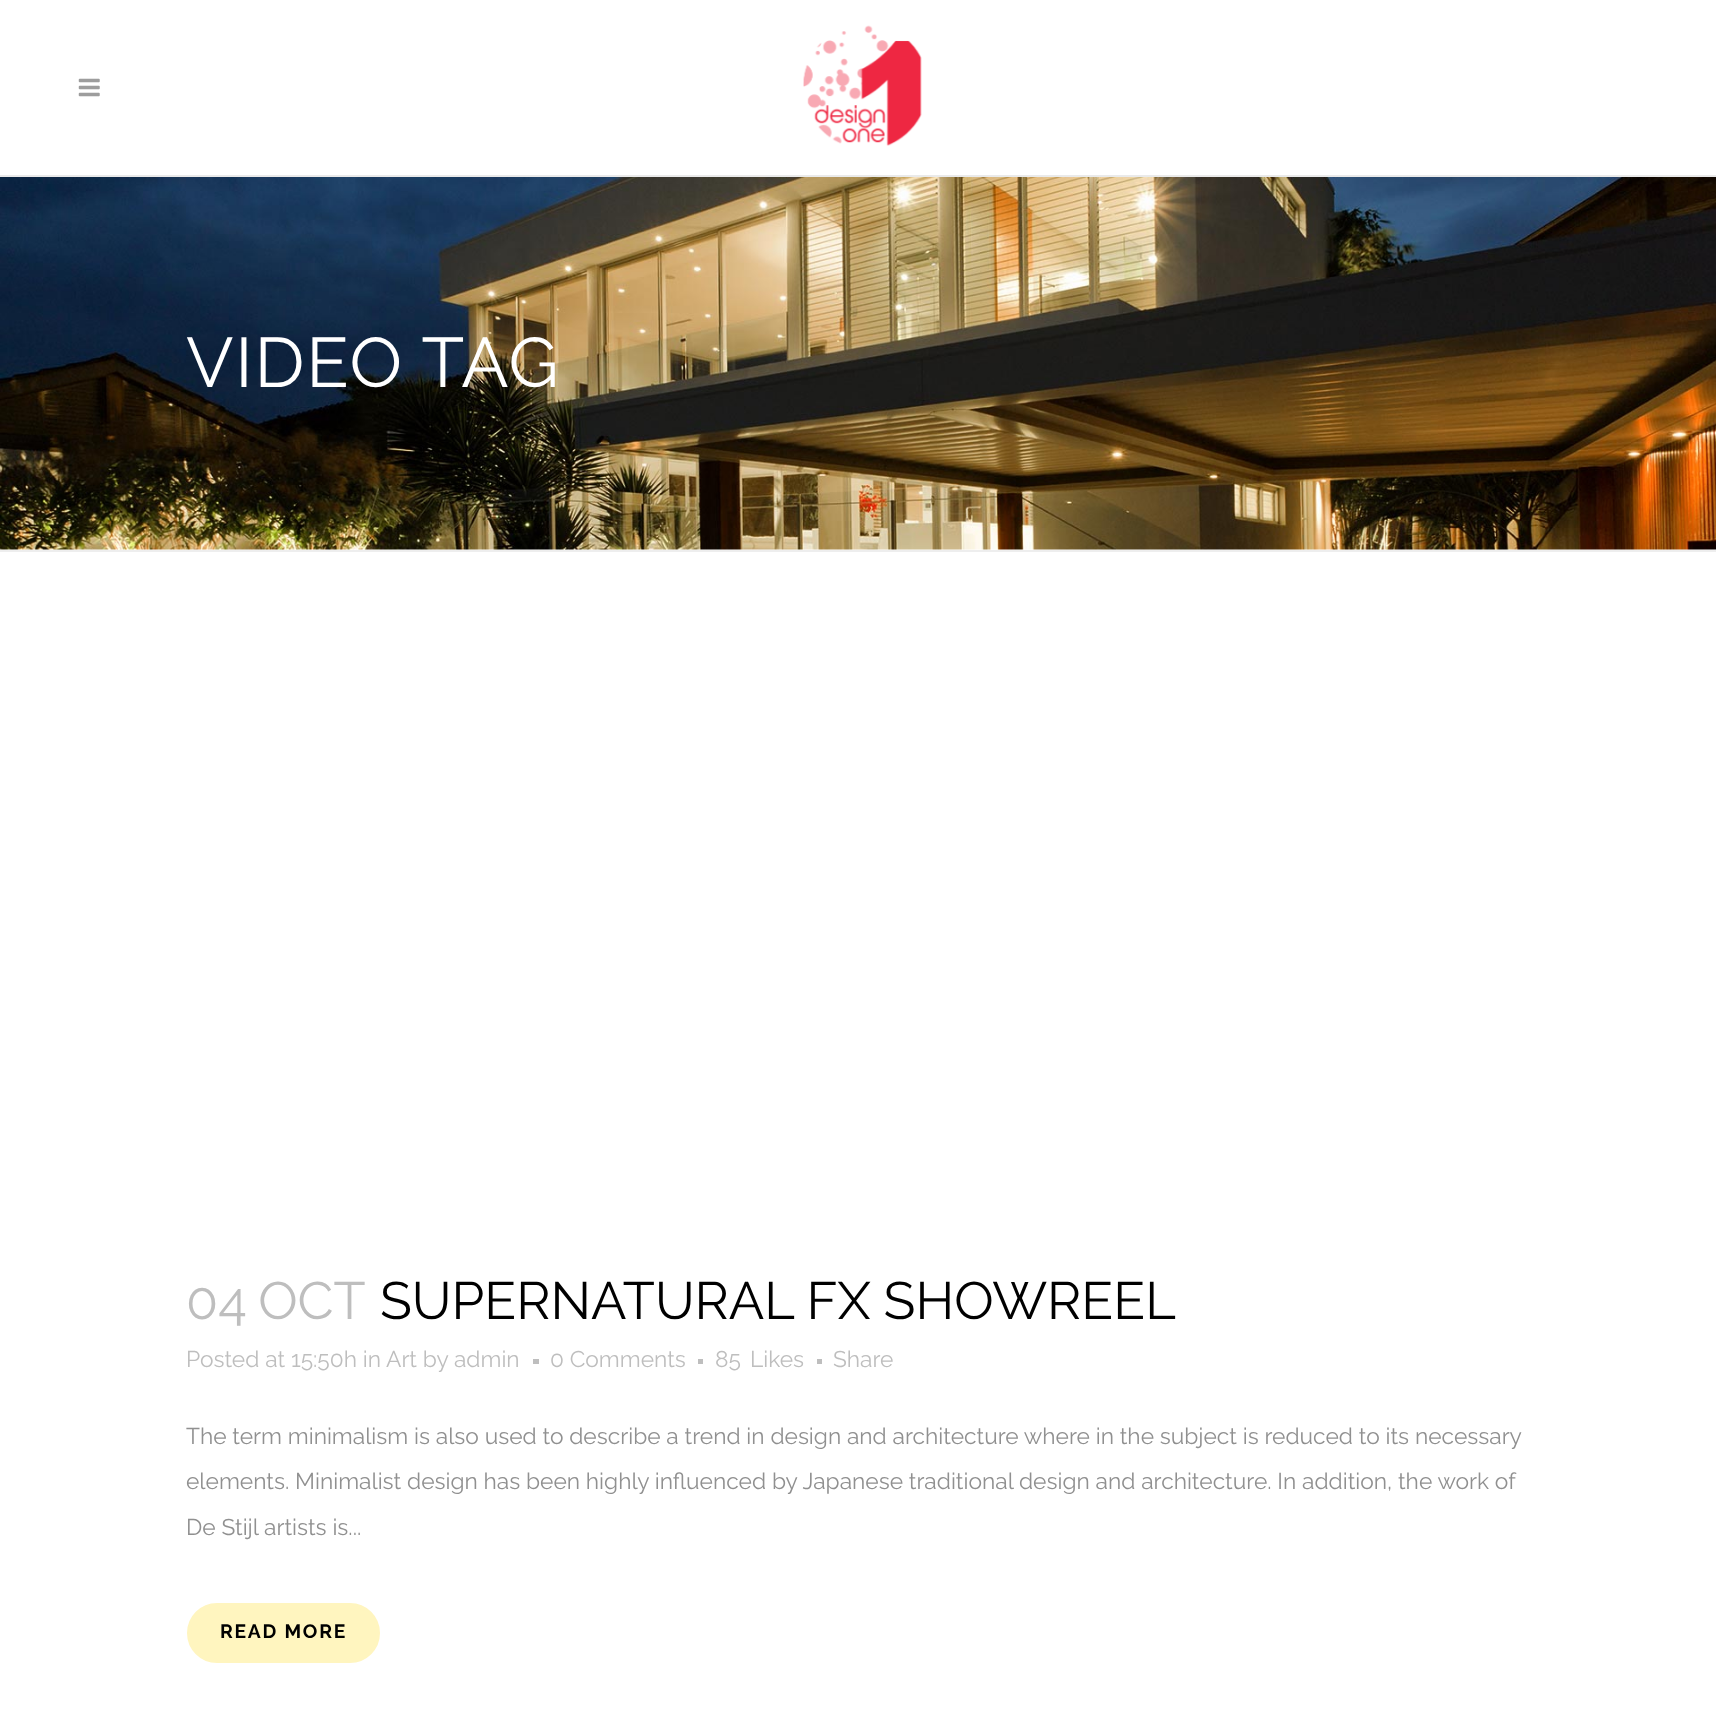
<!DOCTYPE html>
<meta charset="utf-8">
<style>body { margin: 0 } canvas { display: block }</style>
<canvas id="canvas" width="1716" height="1722"></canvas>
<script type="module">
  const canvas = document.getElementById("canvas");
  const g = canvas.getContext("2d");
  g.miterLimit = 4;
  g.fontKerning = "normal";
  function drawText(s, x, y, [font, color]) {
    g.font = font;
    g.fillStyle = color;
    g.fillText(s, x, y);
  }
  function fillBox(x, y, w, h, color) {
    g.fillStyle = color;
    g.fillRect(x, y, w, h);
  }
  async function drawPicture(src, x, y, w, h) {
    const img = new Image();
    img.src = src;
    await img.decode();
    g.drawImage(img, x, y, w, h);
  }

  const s1 = ["70px Raleway", "#FFFFFF"];
  const s2 = ["52.5px Raleway", "#BEBEBE"];
  const s3 = ["52.5px Raleway", "#000000"];
  const s4 = ["22.75px Raleway", "#BEBEBE"];
  const s5 = ["22.75px Raleway", "#909090"];
  const s6 = ["bold 19.25px Raleway", "#000000"];

  fillBox(0, 0, 1716, 1722, "#FFFFFF");
  fillBox(0, 175, 1716, 2, "#EAEAEA");
  await drawPicture("pic1.png", 78, 78, 22, 19);
  await drawPicture("pic2.png", 803, 25, 119, 121);
  fillBox(0, 550, 1716, 2, "#EEEEEE");
  await drawPicture("pic3.png", 0, 177, 1716, 373);
  g.letterSpacing = "1.75px";
  drawText("VIDEO TAG", 186, 387, s1);
  g.letterSpacing = "0px";
  g.wordSpacing = "-2px";
  drawText("04 OCT", 186, 1319, s2);
  g.wordSpacing = "0px";
  drawText("SUPERNATURAL FX SHOWREEL", 380, 1319, s3);
  drawText("Posted at 15:50h in", 186, 1367, s4);
  drawText("Art by admin", 386, 1367, s4);
  fillBox(533, 1359, 6, 5, "#BEBEBE");
  drawText("0 Comments", 550, 1367, s4);
  fillBox(698, 1359, 5, 5, "#BEBEBE");
  drawText("85", 715, 1367, s4);
  drawText("Likes", 750, 1367, s4);
  fillBox(817, 1359, 5, 5, "#BEBEBE");
  drawText("Share", 833, 1367, s4);
  drawText("The term minimalism is also used to describe a trend in design and architecture where in the subject is reduced to its necessary", 186, 1444, s5);
  drawText("elements. Minimalist design has been highly influenced by Japanese traditional design and architecture. In addition, the work of", 186, 1489, s5);
  drawText("De Stijl artists is...", 186, 1535, s5);
  g.fillStyle = "#FFF5BF";
  g.beginPath();
  g.roundRect(189, 1605, 189, 56, 28);
  g.fill();
  g.strokeStyle = "#FFF5BF";
  g.lineWidth = 4;
  g.stroke();
  g.letterSpacing = "1.75px";
  drawText("READ MORE", 220, 1638, s6);
</script>
